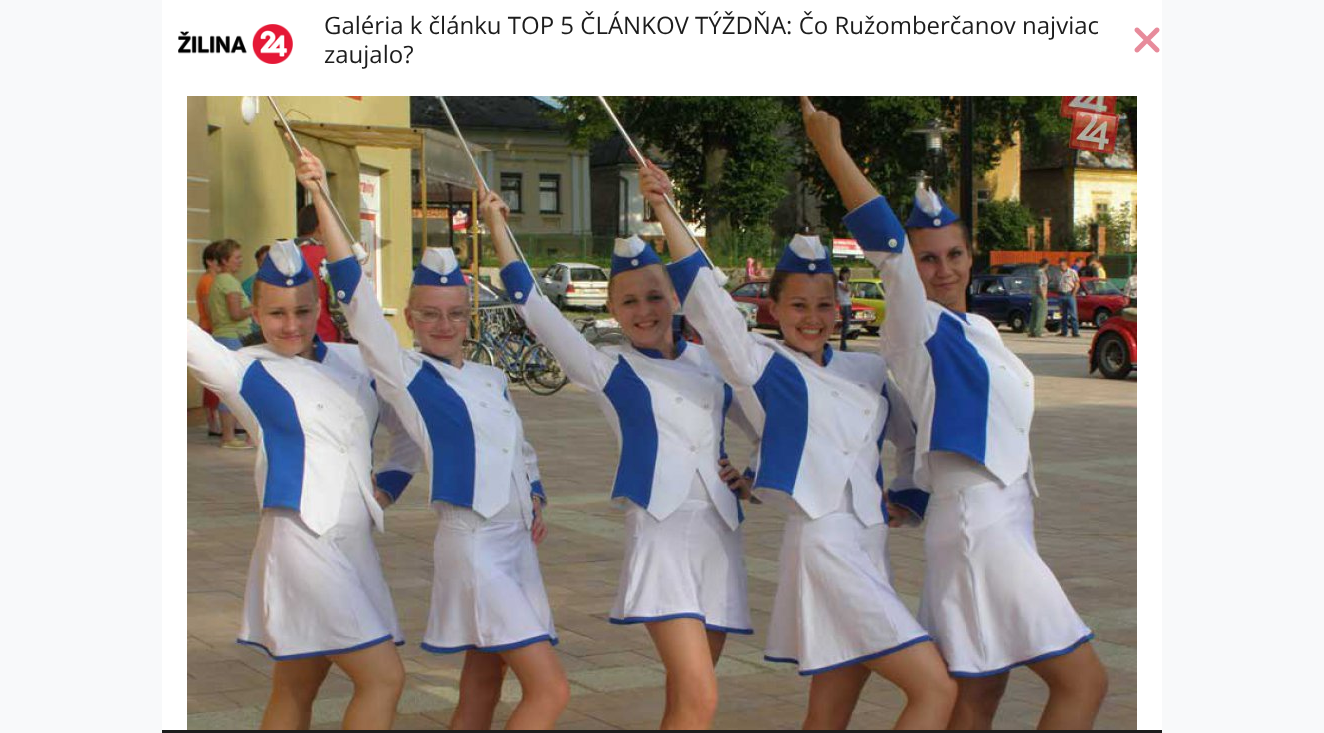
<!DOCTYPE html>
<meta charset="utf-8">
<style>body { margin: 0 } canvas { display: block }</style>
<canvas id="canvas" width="1324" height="733"></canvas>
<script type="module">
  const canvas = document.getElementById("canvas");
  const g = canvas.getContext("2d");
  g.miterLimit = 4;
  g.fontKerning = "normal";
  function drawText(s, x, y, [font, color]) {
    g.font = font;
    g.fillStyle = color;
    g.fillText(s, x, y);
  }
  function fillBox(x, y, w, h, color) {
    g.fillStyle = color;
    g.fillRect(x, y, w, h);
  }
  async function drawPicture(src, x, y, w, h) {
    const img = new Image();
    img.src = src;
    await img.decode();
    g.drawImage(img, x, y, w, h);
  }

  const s1 = ["24px Open Sans", "#1C1C1C"];

  fillBox(0, 0, 1324, 733, "#F8F9FA");
  fillBox(162, 0, 1000, 730, "#FFFFFF");
  await drawPicture("pic1.png", 178, 24, 115, 40);
  drawText("Galéria k článku TOP 5 ČLÁNKOV TÝŽDŇA: Čo Ružomberčanov najviac", 324, 34, s1);
  drawText("zaujalo?", 324, 63, s1);
  await drawPicture("pic2.png", 1134, 27, 26, 26);
  await drawPicture("pic3.png", 187, 96, 950, 634);
  fillBox(162, 730, 1000, 3, "#1C1C1C");
</script>
